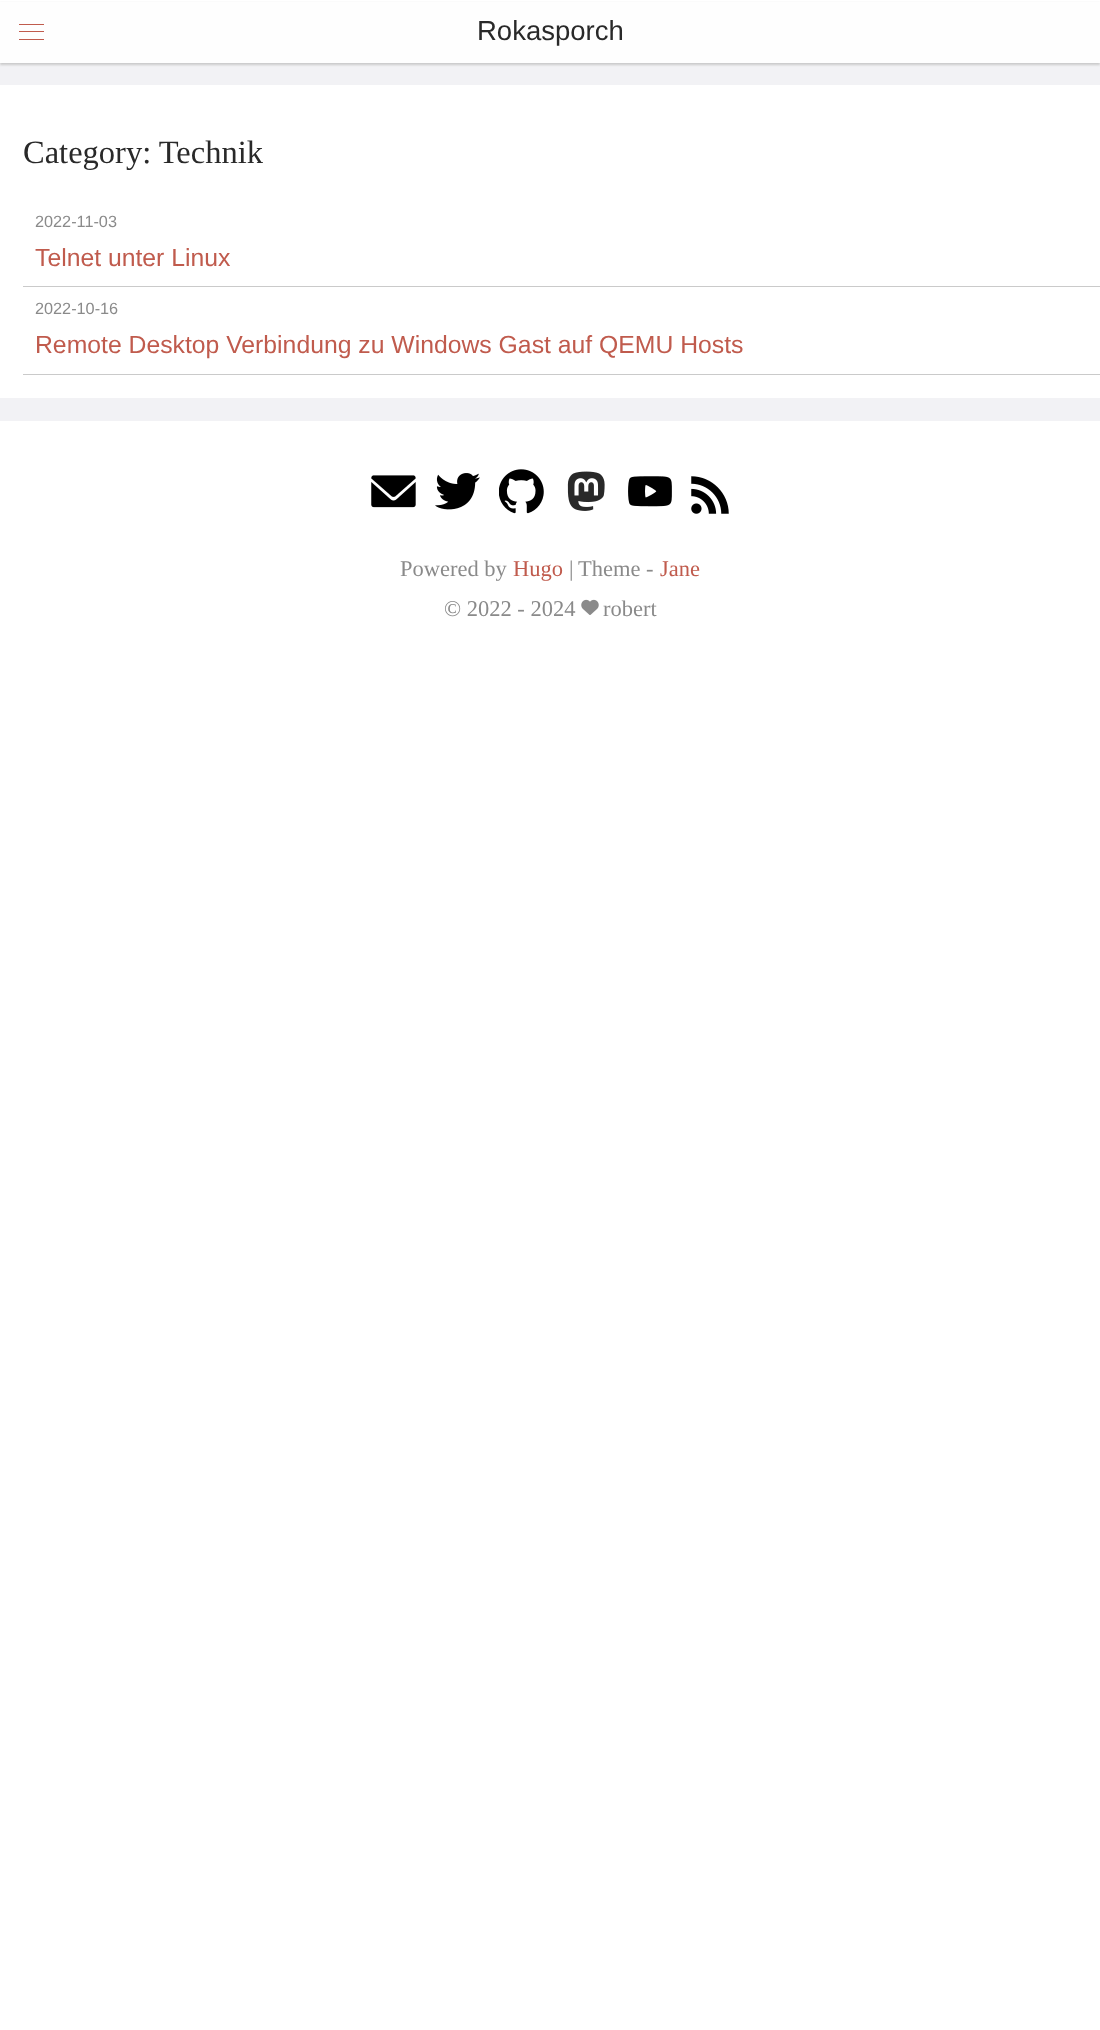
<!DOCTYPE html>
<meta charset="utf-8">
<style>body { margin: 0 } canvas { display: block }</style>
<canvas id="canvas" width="1100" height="2030"></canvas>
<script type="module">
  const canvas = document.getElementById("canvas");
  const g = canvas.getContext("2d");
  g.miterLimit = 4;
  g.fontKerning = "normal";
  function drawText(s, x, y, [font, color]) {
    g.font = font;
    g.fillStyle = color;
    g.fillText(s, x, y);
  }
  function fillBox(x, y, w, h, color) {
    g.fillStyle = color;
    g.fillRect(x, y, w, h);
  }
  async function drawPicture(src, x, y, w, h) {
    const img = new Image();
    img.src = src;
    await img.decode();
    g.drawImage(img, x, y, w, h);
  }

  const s1 = ["27.5px Liberation Sans", "#292929"];
  const s2 = ["32.5px Liberation Serif", "#292929"];
  const s3 = ["16.25px Liberation Sans", "#8A8A8A"];
  const s4 = ["24.75px Liberation Sans", "#C05B4D"];
  const s5 = ["22.5px Liberation Serif", "#8A8A8A"];
  const s6 = ["22.5px Liberation Serif", "#C05B4D"];

  fillBox(0, 0, 1100, 2030, "#FFFFFF");
  fillBox(0, 63, 1100, 358, "#F2F2F5");
  g.fillStyle = "#CACACA";
  g.filter = "blur(1px)";
  g.beginPath();
  g.rect(0, 3, 1100, 62);
  g.fill();
  g.filter = "none";
  fillBox(0, 2, 1100, 61, "#FEFEFE");
  fillBox(19, 24, 25, 1, "#C05B4D");
  fillBox(19, 31, 25, 1, "#C05B4D");
  fillBox(19, 39, 25, 1, "#C05B4D");
  drawText("Rokasporch", 477, 40, s1);
  fillBox(0, 85, 1100, 313, "#FFFFFF");
  drawText("Category: Technik", 23, 163, s2);
  fillBox(23, 286, 1077, 1, "#CACACA");
  drawText("2022-11-03", 35, 227, s3);
  drawText("Telnet unter Linux", 35, 266, s4);
  fillBox(23, 374, 1077, 1, "#CACACA");
  drawText("2022-10-16", 35, 314, s3);
  drawText("Remote Desktop Verbindung zu Windows Gast auf QEMU Hosts", 35, 353, s4);
  await drawPicture("pic1.png", 371, 475, 45, 33);
  await drawPicture("pic2.png", 435, 473, 45, 37);
  await drawPicture("pic3.png", 499, 469, 45, 45);
  await drawPicture("pic4.png", 567, 471, 38, 40);
  await drawPicture("pic5.png", 628, 476, 44, 31);
  await drawPicture("pic6.png", 691, 476, 38, 38);
  drawText("Powered by", 400, 576, s5);
  drawText("Hugo", 513, 576, s6);
  drawText("|", 569, 576, s5);
  drawText("Theme -", 578, 576, s5);
  drawText("Jane", 660, 576, s6);
  drawText("© 2022 - 2024", 444, 616, s5);
  await drawPicture("pic7.png", 581, 599, 18, 16);
  drawText("robert", 603, 616, s5);
</script>
